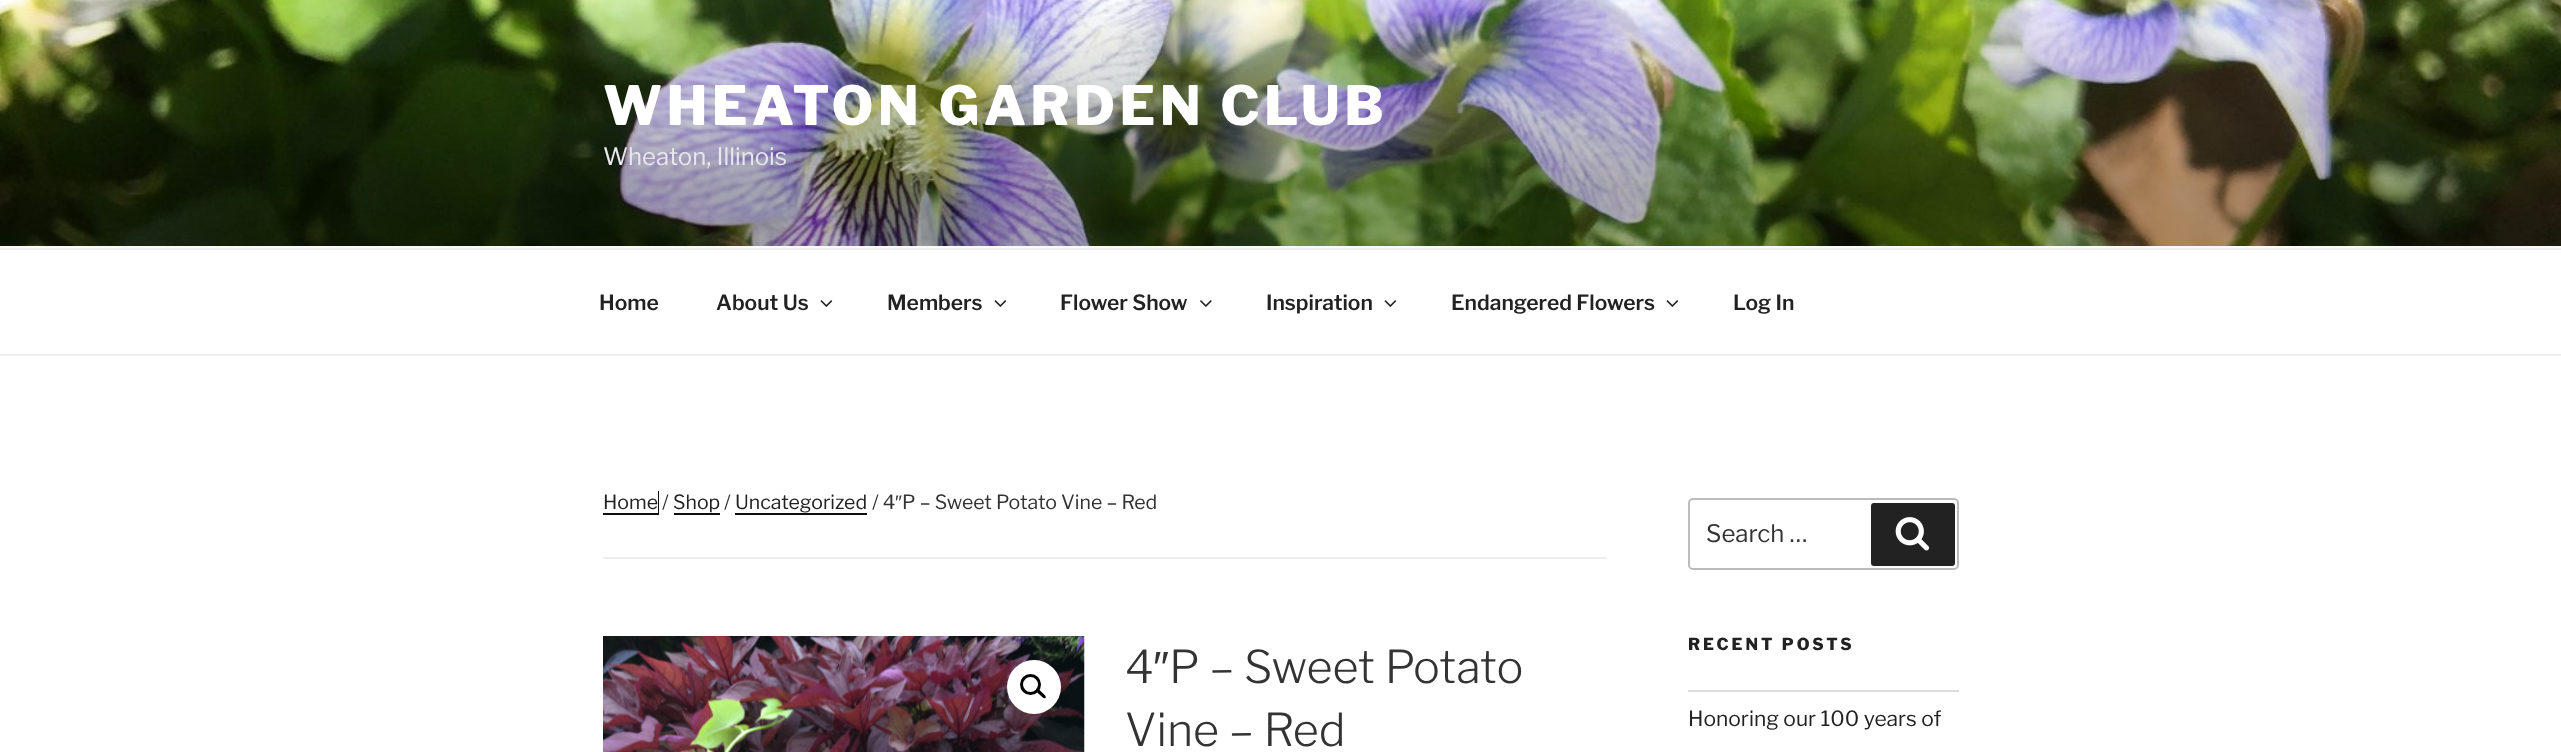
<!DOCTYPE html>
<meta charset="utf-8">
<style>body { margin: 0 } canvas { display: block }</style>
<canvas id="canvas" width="2561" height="752"></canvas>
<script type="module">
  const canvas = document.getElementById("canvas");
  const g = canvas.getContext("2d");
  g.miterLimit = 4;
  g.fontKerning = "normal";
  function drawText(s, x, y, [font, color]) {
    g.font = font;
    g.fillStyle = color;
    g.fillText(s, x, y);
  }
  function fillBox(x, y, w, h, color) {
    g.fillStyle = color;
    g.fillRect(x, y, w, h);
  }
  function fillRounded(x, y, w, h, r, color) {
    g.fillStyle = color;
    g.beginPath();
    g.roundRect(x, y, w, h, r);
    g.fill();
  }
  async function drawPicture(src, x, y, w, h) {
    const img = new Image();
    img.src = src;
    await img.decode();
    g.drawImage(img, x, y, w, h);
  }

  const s1 = ["100 54px 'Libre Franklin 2'", "#FFFFFF"];
  const s2 = ["100 24px Libre Franklin", "#E8E7EC"];
  const s3 = ["100 21px 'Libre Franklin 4'", "#222222"];
  const s4 = ["100 19.5px Libre Franklin", "#222222"];
  const s5 = ["100 19.5px Libre Franklin", "#333333"];
  const s6 = ["19.5px Liberation Sans", "#333333"];
  const s7 = ["100 45px 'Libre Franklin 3'", "#333333"];
  const s8 = ["45px Liberation Sans", "#333333"];
  const s9 = ["100 24px Libre Franklin", "#333333"];
  const s10 = ["100 16.5px 'Libre Franklin 2'", "#222222"];
  const s11 = ["100 21px Libre Franklin", "#222222"];

  fillBox(0, 0, 2561, 752, "#FFFFFF");
  fillBox(0, 246, 2561, 2, "#FAFAFA");
  await drawPicture("pic1.png", 0, 0, 2561, 246);
  g.letterSpacing = "4.3px";
  drawText("WHEATON GARDEN CLUB", 603, 125, s1);
  g.letterSpacing = "0px";
  drawText("Wheaton, Illinois", 603, 165, s2);
  fillBox(0, 248, 2561, 2, "#EEEEEE");
  fillBox(0, 354, 2561, 2, "#EEEEEE");
  drawText("Home", 599, 310, s3);
  drawText("About Us", 716, 310, s3);
  await drawPicture("pic2.png", 820, 300, 13, 7);
  drawText("Members", 887, 310, s3);
  await drawPicture("pic2.png", 994, 300, 13, 7);
  drawText("Flower Show", 1060, 310, s3);
  await drawPicture("pic3.png", 1200, 300, 12, 7);
  drawText("Inspiration", 1266, 310, s3);
  await drawPicture("pic2.png", 1384, 300, 13, 7);
  drawText("Endangered Flowers", 1451, 310, s3);
  await drawPicture("pic2.png", 1666, 300, 13, 7);
  drawText("Log In", 1733, 310, s3);
  fillBox(603, 557, 1004, 2, "#EEEEEE");
  g.fillStyle = "#0F0F0F";
  g.beginPath();
  g.moveTo(603, 513);
  g.lineTo(603, 515);
  g.lineTo(659, 515);
  g.lineTo(659, 491);
  g.lineTo(658, 491);
  g.lineTo(658, 513);
  g.closePath();
  g.fill();
  drawText("Home", 603, 509, s4);
  drawText("/", 662, 509, s5);
  drawText("Shop", 673, 509, s4);
  fillBox(674, 513, 46, 2, "#0F0F0F");
  drawText("/", 724, 509, s5);
  drawText("Uncategorized", 735, 509, s4);
  fillBox(735, 513, 132, 2, "#0F0F0F");
  drawText("/ 4", 872, 509, s5);
  drawText("″", 895, 509, s6);
  drawText("P – Sweet Potato Vine – Red", 902, 509, s5);
  await drawPicture("pic4.png", 603, 636, 482, 116);
  g.fillStyle = "#FFFFFF";
  g.beginPath();
  g.arc(1034, 687, 27, 0, Math.PI * 2);
  g.fill();
  g.beginPath();
  g.arc(1030.5, 684.5, 9, 0, Math.PI * 2);
  g.strokeStyle = "#000000";
  g.lineWidth = 3;
  g.stroke();
  g.fillStyle = "#000000";
  g.beginPath();
  g.moveTo(1037, 689.5);
  g.bezierCurveTo(1038.5, 688, 1041.5, 692, 1042, 692.5);
  g.bezierCurveTo(1043, 693.5, 1047, 696.5, 1045.5, 698);
  g.bezierCurveTo(1043.5, 699.5, 1041, 695.5, 1040, 695);
  g.bezierCurveTo(1039, 694, 1035, 691, 1037, 689.5);
  g.closePath();
  g.fill();
  drawText("4", 1125, 683, s7);
  drawText("″", 1153, 683, s8);
  drawText("P – Sweet Potato", 1169, 683, s7);
  drawText("Vine – Red", 1125, 746, s7);
  g.beginPath();
  g.roundRect(1689, 499, 269, 70, 4);
  g.strokeStyle = "#BBBBBB";
  g.lineWidth = 2;
  g.stroke();
  drawText("Search …", 1706, 542, s9);
  fillRounded(1871, 503, 84, 63, 3, "#222222");
  await drawPicture("pic5.png", 1895, 517, 34, 34);
  g.letterSpacing = "3px";
  drawText("RECENT POSTS", 1688, 650, s10);
  fillBox(1688, 690, 271, 2, "#DDDDDD");
  g.letterSpacing = "0px";
  drawText("Honoring our 100 years of", 1688, 726, s11);
</script>
